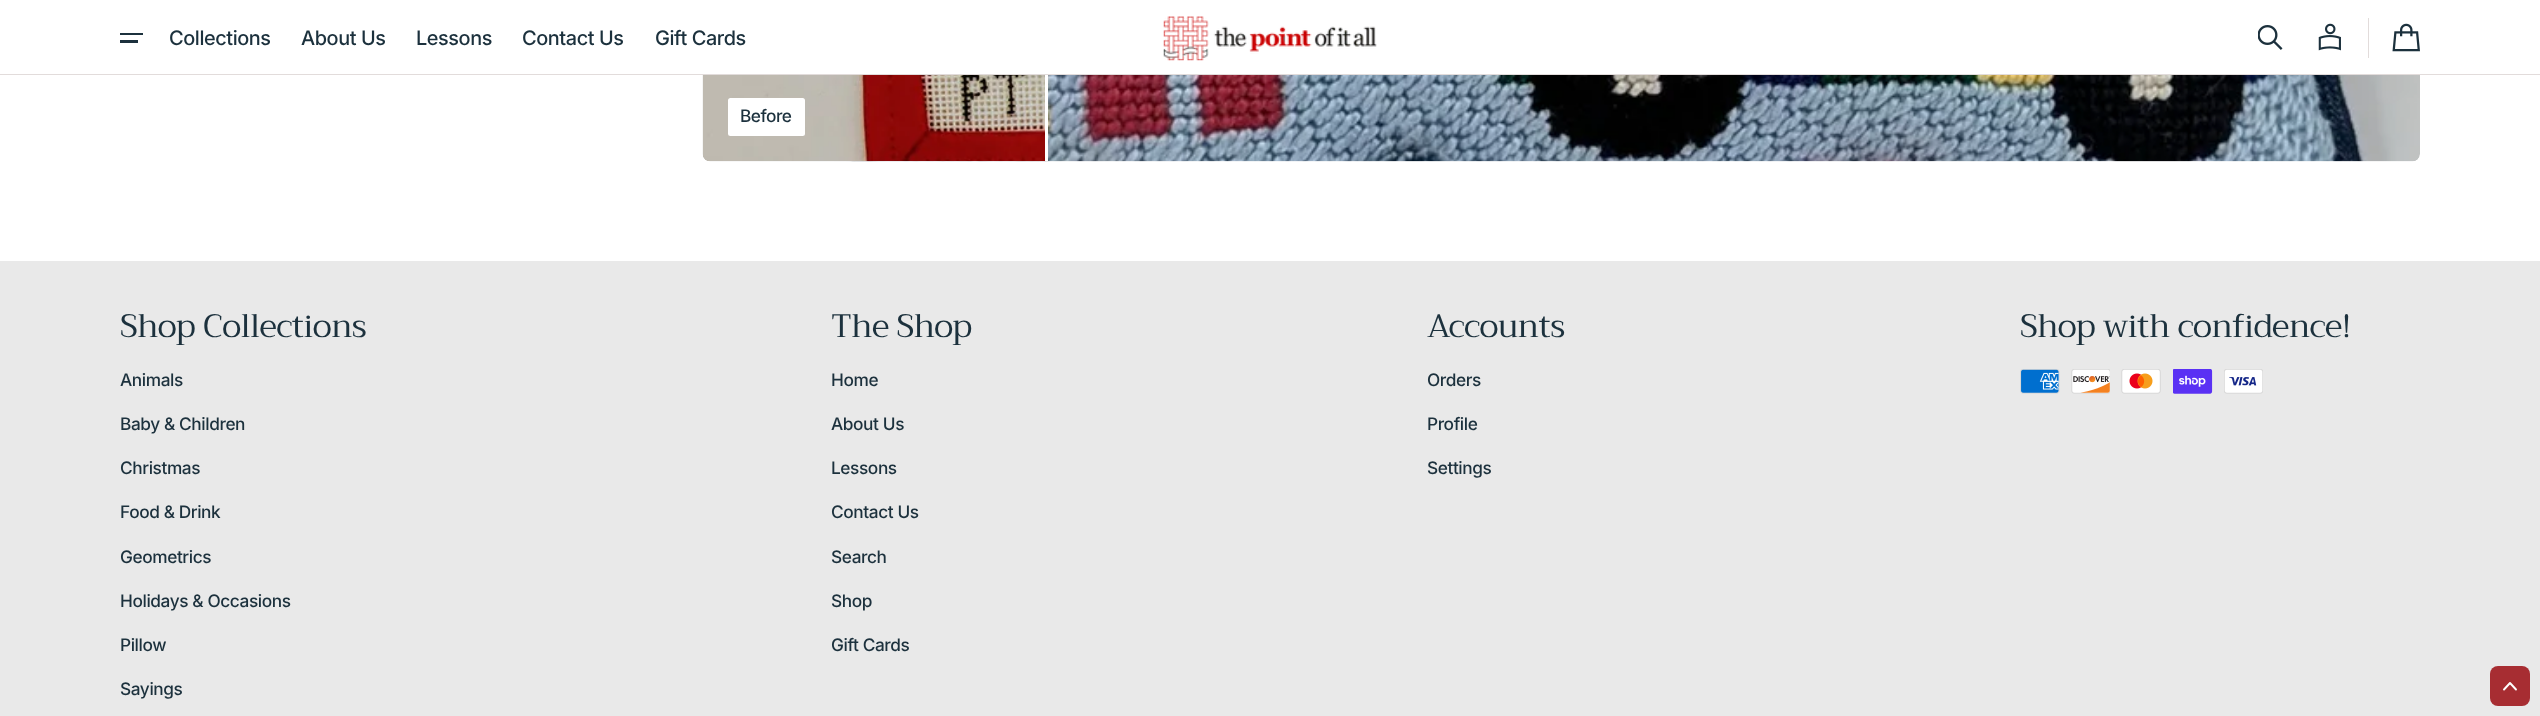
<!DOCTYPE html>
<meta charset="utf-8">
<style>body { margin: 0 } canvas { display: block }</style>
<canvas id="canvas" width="2540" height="716"></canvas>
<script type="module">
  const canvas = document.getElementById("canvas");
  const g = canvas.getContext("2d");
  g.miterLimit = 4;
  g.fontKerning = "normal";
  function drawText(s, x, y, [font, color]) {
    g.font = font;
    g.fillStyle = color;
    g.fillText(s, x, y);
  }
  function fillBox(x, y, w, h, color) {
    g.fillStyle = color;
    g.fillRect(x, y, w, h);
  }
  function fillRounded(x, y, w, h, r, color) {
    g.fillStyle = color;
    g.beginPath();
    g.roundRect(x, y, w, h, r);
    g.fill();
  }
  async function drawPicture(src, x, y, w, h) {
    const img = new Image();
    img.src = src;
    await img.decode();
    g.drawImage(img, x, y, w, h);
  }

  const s1 = ["500 20px 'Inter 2'", "#1C313D"];
  const s2 = ["500 17.25px Inter", "#1C313D"];
  const s3 = ["32.5px Trirong", "#1C313D"];

  fillBox(0, 0, 2540, 716, "#FFFFFF");
  fillBox(120, 33, 23, 2, "#1C313D");
  fillBox(120, 40, 18, 3, "#1C313D");
  g.letterSpacing = "-0.4px";
  drawText("Collections", 169, 45, s1);
  drawText("About Us", 301, 45, s1);
  drawText("Lessons", 416, 45, s1);
  drawText("Contact Us", 522, 45, s1);
  drawText("Gift Cards", 655, 45, s1);
  await drawPicture("pic1.png", 1163, 16, 214, 45);
  await drawPicture("pic2.png", 2258, 25, 25, 25);
  await drawPicture("pic3.png", 2318, 23, 23, 28);
  fillBox(2368, 18, 1, 40, "#E2DCDB");
  await drawPicture("pic4.png", 2392, 23, 28, 29);
  fillBox(0, 74, 2540, 1, "#E2DCDB");
  await drawPicture("pic5.png", 702, 75, 1718, 87);
  await drawPicture("pic6.png", 702, 75, 344, 87);
  fillRounded(728, 98, 77, 38, 2.5, "#FFFFFF");
  g.letterSpacing = "-0.5px";
  drawText("Before", 740, 122, s2);
  fillBox(1045, 75, 3, 86, "#FFFFFF");
  fillBox(0, 261, 2540, 455, "#E9E9E9");
  g.letterSpacing = "-0.65px";
  drawText("Shop Collections", 120, 337, s3);
  g.letterSpacing = "-0.4px";
  drawText("Animals", 120, 386, s2);
  drawText("Baby & Children", 120, 430, s2);
  drawText("Christmas", 120, 474, s2);
  drawText("Food & Drink", 120, 518, s2);
  drawText("Geometrics", 120, 563, s2);
  drawText("Holidays & Occasions", 120, 607, s2);
  drawText("Pillow", 120, 651, s2);
  drawText("Sayings", 120, 695, s2);
  g.letterSpacing = "-0.65px";
  drawText("The Shop", 831, 337, s3);
  g.letterSpacing = "-0.4px";
  drawText("Home", 831, 386, s2);
  drawText("About Us", 831, 430, s2);
  drawText("Lessons", 831, 474, s2);
  drawText("Contact Us", 831, 518, s2);
  drawText("Search", 831, 563, s2);
  drawText("Shop", 831, 607, s2);
  drawText("Gift Cards", 831, 651, s2);
  g.letterSpacing = "-0.65px";
  drawText("Accounts", 1427, 337, s3);
  g.letterSpacing = "-0.4px";
  drawText("Orders", 1427, 386, s2);
  drawText("Profile", 1427, 430, s2);
  drawText("Settings", 1427, 474, s2);
  g.letterSpacing = "-0.65px";
  drawText("Shop with confidence!", 2020, 337, s3);
  await drawPicture("pic7.png", 2020, 369, 40, 25);
  await drawPicture("pic8.png", 2071, 369, 39, 25);
  await drawPicture("pic9.png", 2121, 369, 40, 25);
  await drawPicture("pic10.png", 2173, 369, 40, 25);
  await drawPicture("pic11.png", 2224, 369, 39, 25);
  fillRounded(2490, 666, 40, 40, 8, "#A72D32");
  g.beginPath();
  g.moveTo(2504, 689.5);
  g.lineTo(2510, 683);
  g.lineTo(2516, 689.5);
  g.strokeStyle = "#FFFFFF";
  g.lineWidth = 1.9;
  g.lineCap = "round";
  g.lineJoin = "round";
  g.stroke();
</script>
